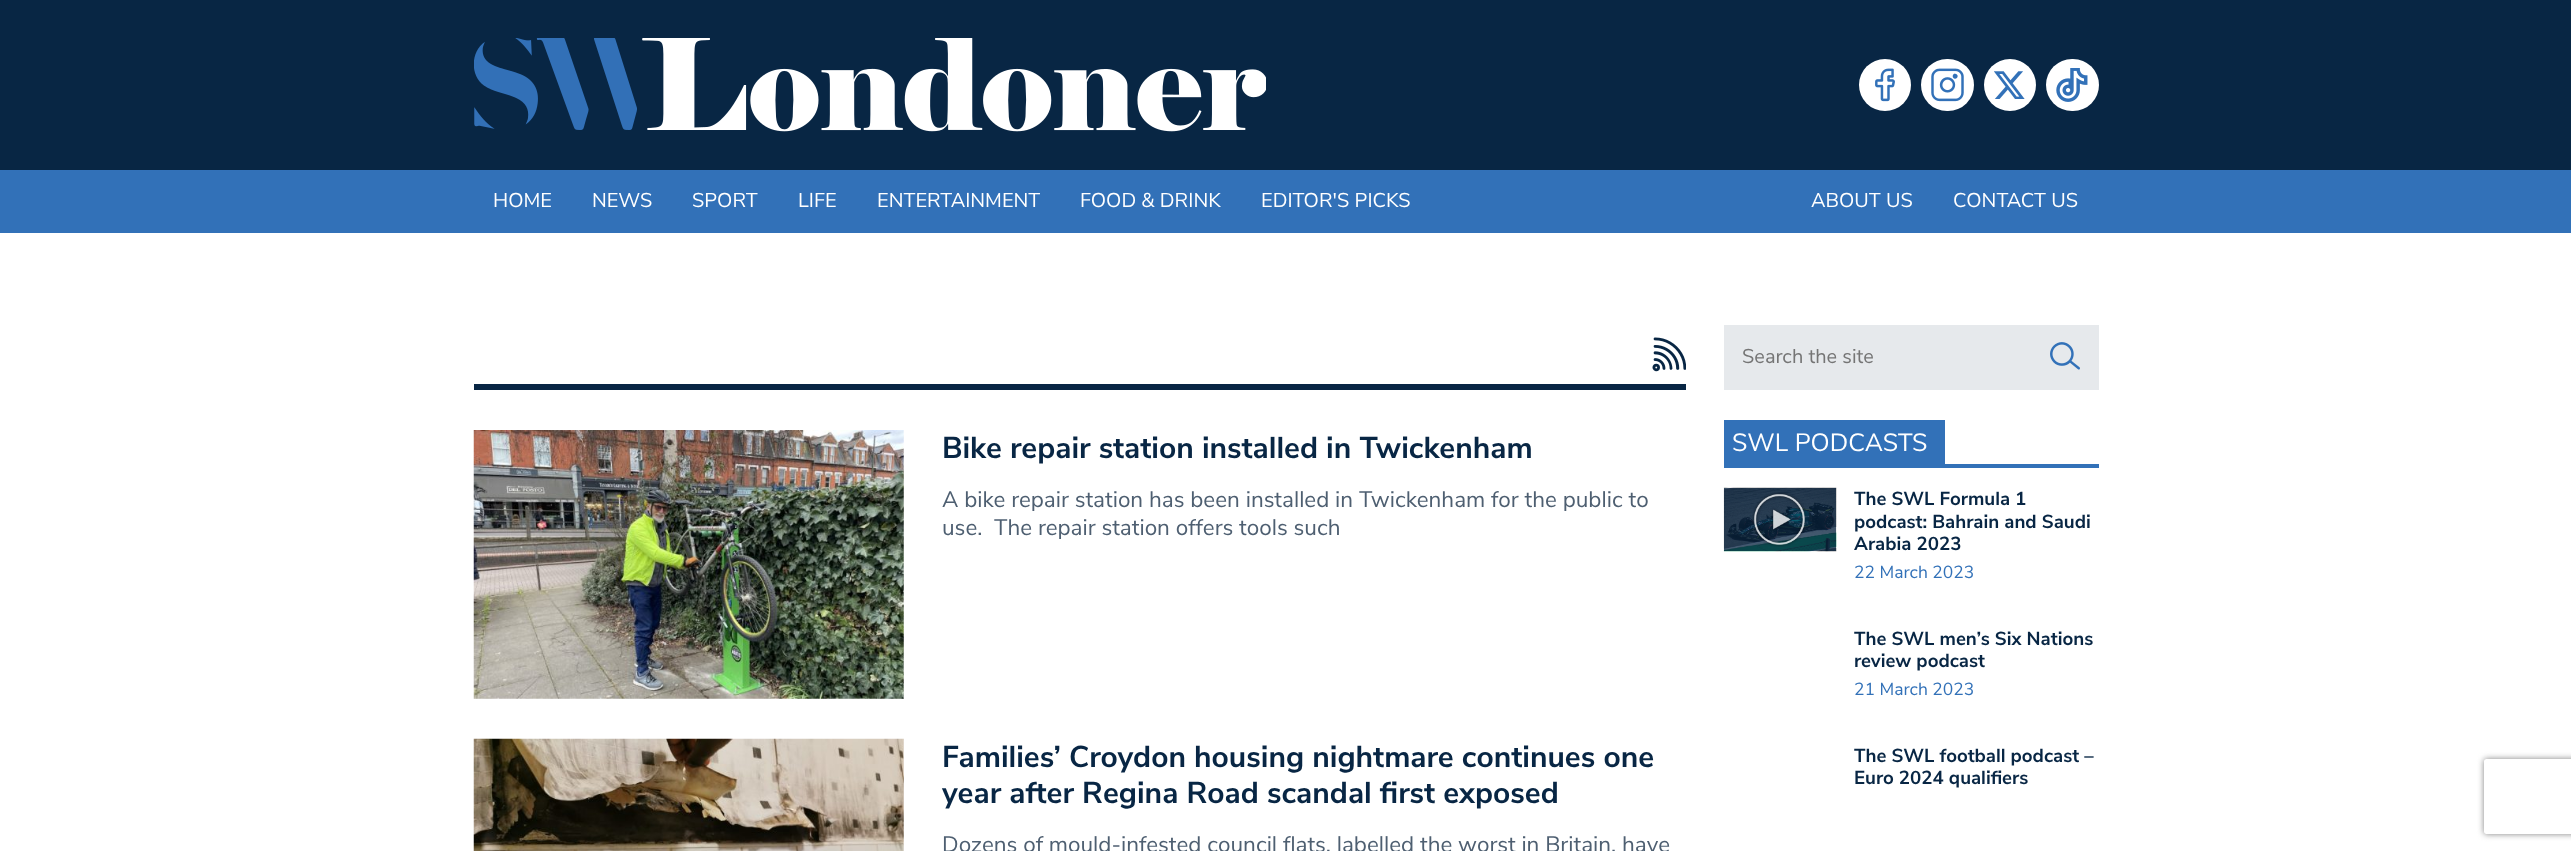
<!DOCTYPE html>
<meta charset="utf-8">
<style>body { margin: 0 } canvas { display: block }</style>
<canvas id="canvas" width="2571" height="851"></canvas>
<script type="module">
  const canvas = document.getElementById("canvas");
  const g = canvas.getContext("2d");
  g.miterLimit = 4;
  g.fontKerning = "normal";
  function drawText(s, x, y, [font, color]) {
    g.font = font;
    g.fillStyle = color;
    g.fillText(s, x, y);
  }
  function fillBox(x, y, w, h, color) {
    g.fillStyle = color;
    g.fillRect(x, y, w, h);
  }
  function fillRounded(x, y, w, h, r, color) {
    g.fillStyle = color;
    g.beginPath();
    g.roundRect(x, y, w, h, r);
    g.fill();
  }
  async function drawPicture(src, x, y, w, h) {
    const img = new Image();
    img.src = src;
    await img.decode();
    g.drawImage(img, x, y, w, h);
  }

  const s1 = ["20px Nunito Sans", "#FFFFFF"];
  const s2 = ["bold 30px Nunito Sans", "#082644"];
  const s3 = ["22.5px Nunito Sans", "#4E5F71"];
  const s4 = ["20px Nunito Sans", "#757575"];
  const s5 = ["25px Nunito Sans", "#FFFFFF"];
  const s6 = ["bold 18.75px Nunito Sans", "#082644"];
  const s7 = ["17.5px Nunito Sans", "#3271B8"];

  fillBox(0, 0, 2571, 851, "#FFFFFF");
  fillBox(0, 0, 2571, 170, "#082644");
  await drawPicture("pic1.png", 474, 38, 792, 94);
  g.fillStyle = "#FFFFFF";
  g.beginPath();
  g.arc(1885, 85, 26, 0, Math.PI * 2);
  g.fill();
  await drawPicture("pic2.png", 1875, 68, 20, 34);
  fillRounded(1921, 59, 53, 52, 26, "#FFFFFF");
  await drawPicture("pic3.png", 1931, 68, 33, 34);
  g.beginPath();
  g.arc(2010, 85, 26, 0, Math.PI * 2);
  g.fill();
  await drawPicture("pic4.png", 1994, 71, 31, 28);
  fillRounded(2046, 59, 53, 52, 26, "#FFFFFF");
  await drawPicture("pic5.png", 2056, 68, 32, 34);
  fillBox(0, 170, 2571, 63, "#3271B8");
  drawText("HOME", 493, 207, s1);
  drawText("NEWS", 592, 207, s1);
  drawText("SPORT", 692, 207, s1);
  drawText("LIFE", 798, 207, s1);
  drawText("ENTERTAINMENT", 877, 207, s1);
  drawText("FOOD & DRINK", 1080, 207, s1);
  drawText("EDITOR'S PICKS", 1261, 207, s1);
  drawText("ABOUT US", 1811, 207, s1);
  drawText("CONTACT US", 1953, 207, s1);
  fillBox(474, 384, 1212, 6, "#082644");
  await drawPicture("pic6.png", 1652, 337, 34, 35);
  await drawPicture("pic7.png", 473, 430, 431, 269);
  drawText("Bike repair station installed in Twickenham", 942, 458, s2);
  drawText("A bike repair station has been installed in Twickenham for the public to", 942, 507, s3);
  drawText("use.  The repair station offers tools such", 942, 535, s3);
  await drawPicture("pic8.png", 473, 738, 431, 113);
  drawText("Families’ Croydon housing nightmare continues one", 942, 767, s2);
  drawText("year after Regina Road scandal first exposed", 942, 803, s2);
  drawText("Dozens of mould-infested council flats, labelled the worst in Britain, have", 942, 852, s3);
  fillBox(1724, 325, 375, 65, "#E6E9EC");
  drawText("Search the site", 1742, 363, s4);
  await drawPicture("pic9.png", 2050, 342, 30, 28);
  fillBox(1724, 464, 375, 4, "#3271B8");
  fillBox(1724, 420, 221, 44, "#3271B8");
  drawText("SWL PODCASTS", 1732, 451, s5);
  await drawPicture("pic10.png", 1723, 487, 114, 65);
  await drawPicture("pic11.png", 1752, 492, 55, 55);
  drawText("The SWL Formula 1", 1854, 505, s6);
  drawText("podcast: Bahrain and Saudi", 1854, 528, s6);
  drawText("Arabia 2023", 1854, 550, s6);
  drawText("22 March 2023", 1854, 578, s7);
  drawText("The SWL men’s Six Nations", 1854, 645, s6);
  drawText("review podcast", 1854, 667, s6);
  drawText("21 March 2023", 1854, 695, s7);
  drawText("The SWL football podcast –", 1854, 762, s6);
  drawText("Euro 2024 qualifiers", 1854, 784, s6);
  g.save();
  g.beginPath();
  g.moveTo(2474, 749);
  g.lineTo(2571, 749);
  g.lineTo(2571, 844);
  g.lineTo(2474, 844);
  g.closePath();
  g.moveTo(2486.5, 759);
  g.lineTo(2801.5, 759);
  g.bezierCurveTo(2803, 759, 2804, 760, 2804, 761.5);
  g.lineTo(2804, 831.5);
  g.bezierCurveTo(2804, 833, 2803, 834, 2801.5, 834);
  g.lineTo(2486.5, 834);
  g.bezierCurveTo(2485, 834, 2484, 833, 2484, 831.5);
  g.lineTo(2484, 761.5);
  g.bezierCurveTo(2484, 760, 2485, 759, 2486.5, 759);
  g.closePath();
  g.clip("evenodd");
  g.fillStyle = "#808080";
  g.filter = "blur(3px)";
  g.beginPath();
  g.roundRect(2484, 759, 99, 75, 2.5);
  g.fill();
  g.filter = "none";
  g.restore();
</script>
